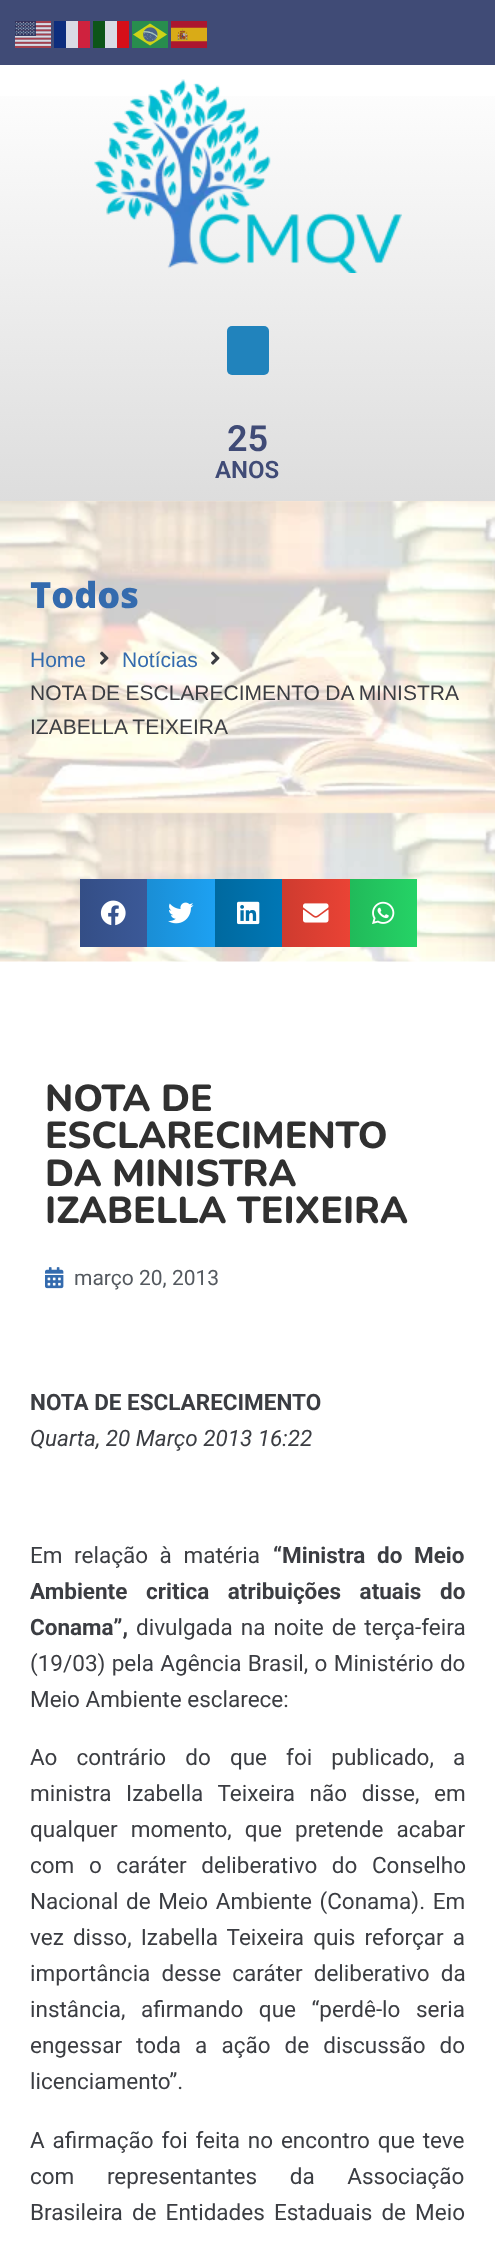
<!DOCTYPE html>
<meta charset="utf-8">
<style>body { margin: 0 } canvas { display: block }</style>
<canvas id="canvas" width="495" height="2243"></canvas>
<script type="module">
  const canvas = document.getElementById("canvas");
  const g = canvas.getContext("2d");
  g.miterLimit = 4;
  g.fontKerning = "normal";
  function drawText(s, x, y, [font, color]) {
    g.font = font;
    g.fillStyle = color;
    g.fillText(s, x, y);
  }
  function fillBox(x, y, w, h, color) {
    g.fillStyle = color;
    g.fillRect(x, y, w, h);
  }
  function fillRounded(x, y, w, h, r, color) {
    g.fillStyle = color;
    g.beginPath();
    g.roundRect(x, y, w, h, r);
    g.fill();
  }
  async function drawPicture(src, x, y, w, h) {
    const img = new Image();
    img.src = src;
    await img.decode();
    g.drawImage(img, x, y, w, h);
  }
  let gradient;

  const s1 = ["600 36px Roboto", "#404B76"];
  const s2 = ["600 24px Roboto", "#404B76"];
  const s3 = ["800 36px Open Sans", "#346BAE"];
  const s4 = ["21px Liberation Sans", "#346BAE"];
  const s5 = ["21px Liberation Sans", "#3B3D42"];
  const s6 = ["800 37.5px Nunito", "#303030"];
  const s7 = ["21px Roboto", "#54595F"];
  const s8 = ["bold 22.5px Roboto", "#3B3D42"];
  const s9 = ["italic 22.5px Roboto", "#3B3D42"];
  const s10 = ["22.5px Roboto", "#3B3D42"];

  fillBox(0, 0, 495, 2243, "#FFFFFF");
  fillBox(0, 0, 495, 65, "#404B76");
  await drawPicture("pic1.png", 15, 21, 36, 27);
  fillBox(54, 21, 12, 27, "#0D2D7D");
  fillBox(66, 21, 12, 27, "#D9DBE4");
  fillBox(78, 21, 12, 27, "#CF223E");
  fillBox(93, 21, 12, 27, "#0D5518");
  fillBox(105, 21, 12, 27, "#D9DBE4");
  fillBox(117, 21, 12, 27, "#D60F18");
  await drawPicture("pic2.png", 132, 21, 36, 27);
  await drawPicture("pic3.png", 171, 21, 36, 27);
  gradient = g.createLinearGradient(247, 64, 248, 501);
  gradient.addColorStop(0, "#FFFFFF");
  gradient.addColorStop(1, "#DDDDDD");
  g.fillStyle = gradient;
  g.fillRect(0, 96, 495, 405);
  await drawPicture("pic4.png", 94, 79, 308, 194);
  fillRounded(227, 326, 42, 49, 5, "#2183BC");
  drawText("25", 227, 451, s1);
  drawText("ANOS", 215, 478, s2);
  await drawPicture("pic5.png", 0, 501, 495, 461);
  drawText("Todos", 30, 608, s3);
  drawText("Home", 30, 667, s4);
  await drawPicture("pic6.png", 100, 651, 9, 14);
  drawText("Notícias", 122, 667, s4);
  await drawPicture("pic7.png", 211, 651, 9, 14);
  g.wordSpacing = "-0.5px";
  drawText("NOTA DE ESCLARECIMENTO DA MINISTRA", 30, 700, s5);
  g.wordSpacing = "0px";
  drawText("IZABELLA TEIXEIRA", 30, 734, s5);
  gradient = g.createLinearGradient(80, 913, 147, 913);
  gradient.addColorStop(0, "#344E86");
  gradient.addColorStop(1, "#3B5998");
  g.fillStyle = gradient;
  g.fillRect(80, 879, 67, 68);
  await drawPicture("pic8.png", 100, 900, 26, 26);
  gradient = g.createLinearGradient(147, 913, 215, 913);
  gradient.addColorStop(0, "#1A8ED5");
  gradient.addColorStop(1, "#1DA1F2");
  g.fillStyle = gradient;
  g.fillRect(147, 879, 68, 68);
  await drawPicture("pic9.png", 168, 902, 26, 22);
  gradient = g.createLinearGradient(215, 913, 282, 913);
  gradient.addColorStop(0, "#00699F");
  gradient.addColorStop(1, "#0077B5");
  g.fillStyle = gradient;
  g.fillRect(215, 879, 67, 68);
  await drawPicture("pic10.png", 237, 901, 23, 24);
  gradient = g.createLinearGradient(282, 913, 350, 913);
  gradient.addColorStop(0, "#CE3B2F");
  gradient.addColorStop(1, "#EA4335");
  g.fillStyle = gradient;
  g.fillRect(282, 879, 68, 68);
  await drawPicture("pic11.png", 303, 903, 26, 20);
  gradient = g.createLinearGradient(350, 913, 417, 913);
  gradient.addColorStop(0, "#21BA5A");
  gradient.addColorStop(1, "#25D366");
  g.fillStyle = gradient;
  g.fillRect(350, 879, 67, 68);
  await drawPicture("pic12.png", 372, 901, 23, 23);
  drawText("NOTA DE", 45, 1111, s6);
  drawText("ESCLARECIMENTO", 45, 1148, s6);
  drawText("DA MINISTRA", 45, 1186, s6);
  drawText("IZABELLA TEIXEIRA", 45, 1223, s6);
  await drawPicture("pic13.png", 45, 1267, 19, 22);
  drawText("março 20, 2013", 74, 1285, s7);
  drawText("NOTA DE ESCLARECIMENTO", 30, 1410, s8);
  drawText("Quarta, 20 Março 2013 16:22", 30, 1446, s9);
  g.wordSpacing = "6px";
  drawText("Em relação à matéria", 30, 1563, s10);
  drawText("“Ministra do Meio", 273, 1563, s8);
  g.wordSpacing = "13px";
  drawText("Ambiente critica atribuições atuais do", 30, 1599, s8);
  g.wordSpacing = "0px";
  drawText("Conama”,", 30, 1635, s8);
  g.wordSpacing = "2.5px";
  drawText("divulgada na noite de terça-feira", 136, 1635, s10);
  g.wordSpacing = "0.75px";
  drawText("(19/03) pela Agência Brasil, o Ministério do", 30, 1671, s10);
  g.wordSpacing = "0px";
  drawText("Meio Ambiente esclarece:", 30, 1707, s10);
  g.wordSpacing = "13.5px";
  drawText("Ao contrário do que foi publicado, a", 30, 1765, s10);
  g.wordSpacing = "9px";
  drawText("ministra Izabella Teixeira não disse, em", 30, 1801, s10);
  g.wordSpacing = "7.5px";
  drawText("qualquer momento, que pretende acabar", 30, 1837, s10);
  g.wordSpacing = "9px";
  drawText("com o caráter deliberativo do Conselho", 30, 1873, s10);
  g.wordSpacing = "2px";
  drawText("Nacional de Meio Ambiente (Conama). Em", 30, 1909, s10);
  g.wordSpacing = "3.5px";
  drawText("vez disso, Izabella Teixeira quis reforçar a", 30, 1945, s10);
  g.wordSpacing = "5.5px";
  drawText("importância desse caráter deliberativo da", 30, 1981, s10);
  g.wordSpacing = "10px";
  drawText("instância, afirmando que “perdê-lo seria", 30, 2017, s10);
  g.wordSpacing = "8.5px";
  drawText("engessar toda a ação de discussão do", 30, 2053, s10);
  g.wordSpacing = "0px";
  drawText("licenciamento”.", 30, 2089, s10);
  g.wordSpacing = "2.25px";
  drawText("A afirmação foi feita no encontro que teve", 30, 2148, s10);
  g.wordSpacing = "27px";
  drawText("com representantes da Associação", 30, 2184, s10);
  g.wordSpacing = "3.5px";
  drawText("Brasileira de Entidades Estaduais de Meio", 30, 2220, s10);
</script>
